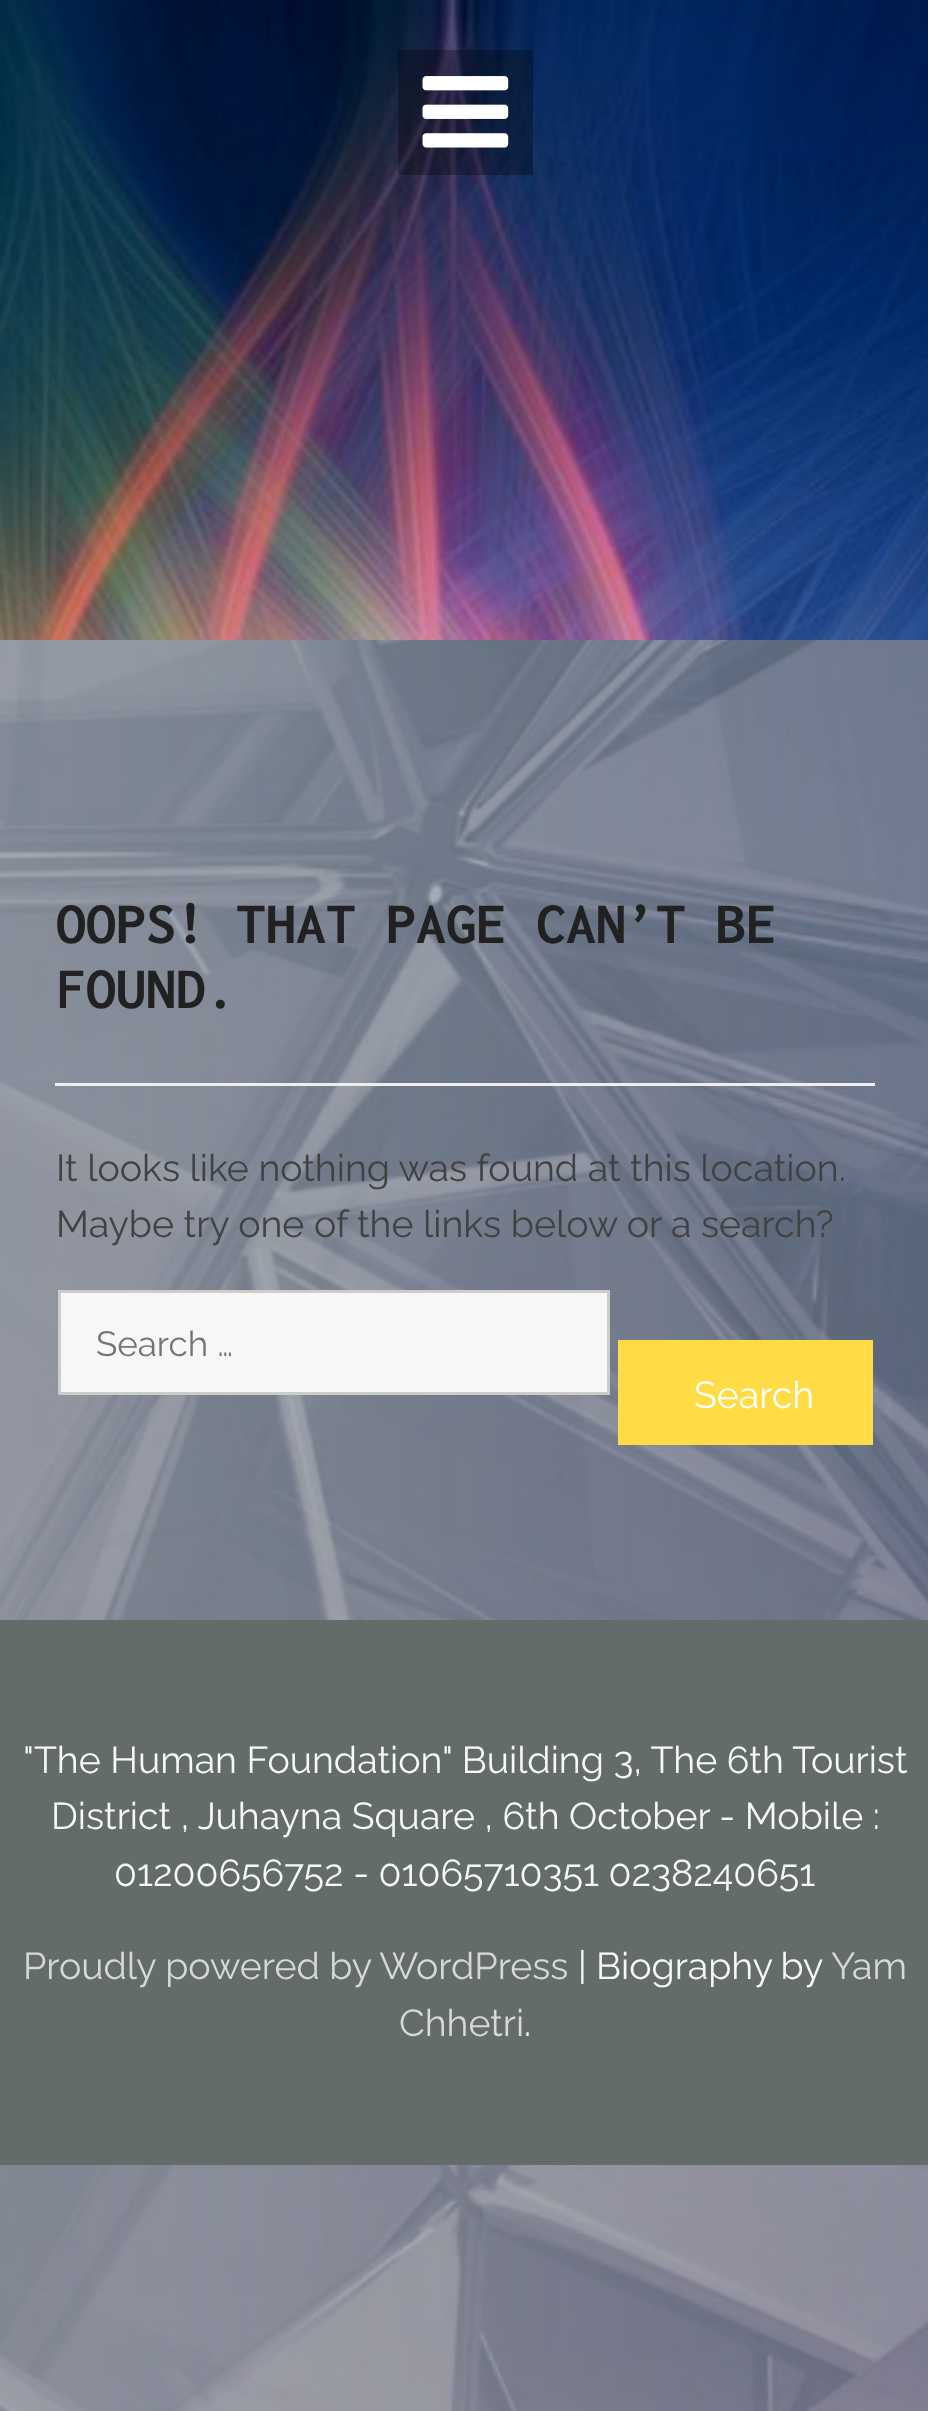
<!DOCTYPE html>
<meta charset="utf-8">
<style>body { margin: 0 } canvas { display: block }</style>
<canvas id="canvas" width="928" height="2411"></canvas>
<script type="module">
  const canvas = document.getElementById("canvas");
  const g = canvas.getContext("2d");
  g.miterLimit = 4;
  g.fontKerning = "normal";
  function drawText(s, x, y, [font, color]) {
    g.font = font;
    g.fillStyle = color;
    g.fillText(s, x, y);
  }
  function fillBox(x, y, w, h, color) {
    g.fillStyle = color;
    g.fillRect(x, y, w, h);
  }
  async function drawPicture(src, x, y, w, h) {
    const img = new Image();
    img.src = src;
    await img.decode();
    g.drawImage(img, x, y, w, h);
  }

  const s1 = ["bold 60px Inconsolata", "#212121"];
  const s2 = ["37.5px Raleway", "#414141"];
  const s3 = ["35px Raleway", "#757575"];
  const s4 = ["37.5px Raleway", "#FFFFFF"];
  const s5 = ["37.5px Raleway", "#F8F8F8"];
  const s6 = ["37.5px Raleway", "#D8D8D8"];

  fillBox(0, 0, 928, 2411, "#FFFFFF");
  await drawPicture("pic1.png", 0, 640, 928, 1771);
  await drawPicture("pic2.png", 0, 0, 928, 640);
  fillBox(398, 50, 135, 125, "rgba(0, 0, 0, 0.3)");
  await drawPicture("pic3.png", 422, 76, 87, 72);
  fillBox(55, 1083, 820, 3, "#EEEEEE");
  drawText("OOPS! THAT PAGE CAN’T BE", 56, 943, s1);
  drawText("FOUND.", 56, 1008, s1);
  drawText("It looks like nothing was found at this location.", 56, 1181, s2);
  drawText("Maybe try one of the links below or a search?", 56, 1237, s2);
  g.fillStyle = "#F7F7F7";
  g.beginPath();
  g.rect(59.5, 1291.5, 549, 102);
  g.fill();
  g.strokeStyle = "#CCCCCC";
  g.lineWidth = 3;
  g.stroke();
  drawText("Search …", 96, 1356, s3);
  fillBox(618, 1340, 255, 105, "#FFDB46");
  drawText("Search", 694, 1408, s4);
  fillBox(0, 1620, 928, 545, "#636B6B");
  drawText("\"The Human Foundation\" Building 3, The 6th Tourist", 23, 1773, s5);
  drawText("District , Juhayna Square , 6th October - Mobile :", 51, 1829, s5);
  drawText("01200656752 - 01065710351 0238240651", 114, 1886, s5);
  drawText("Proudly powered by WordPress", 23, 1979, s6);
  drawText("|", 578, 1979, s5);
  g.wordSpacing = "-1px";
  drawText("Biography by", 596, 1979, s5);
  g.wordSpacing = "0px";
  drawText("Yam", 831, 1979, s6);
  drawText("Chhetri", 399, 2036, s6);
  drawText(".", 524, 2036, s5);
</script>
